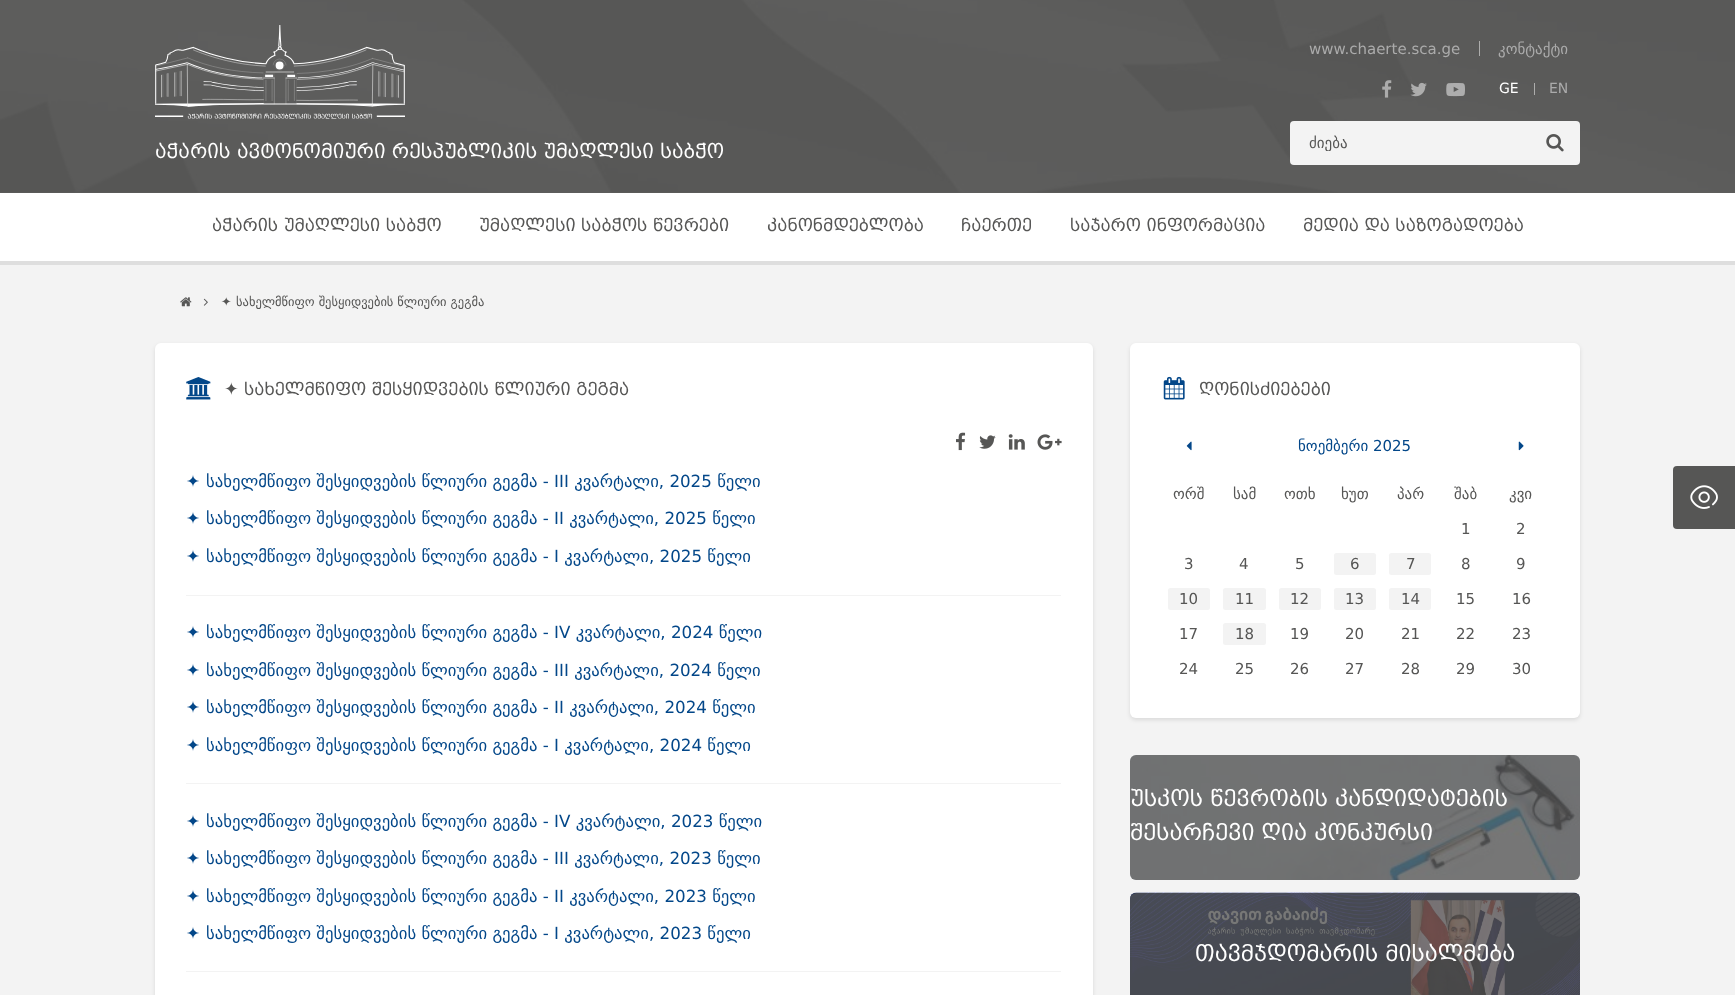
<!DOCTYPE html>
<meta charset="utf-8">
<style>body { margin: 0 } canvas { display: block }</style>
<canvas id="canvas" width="1735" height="995"></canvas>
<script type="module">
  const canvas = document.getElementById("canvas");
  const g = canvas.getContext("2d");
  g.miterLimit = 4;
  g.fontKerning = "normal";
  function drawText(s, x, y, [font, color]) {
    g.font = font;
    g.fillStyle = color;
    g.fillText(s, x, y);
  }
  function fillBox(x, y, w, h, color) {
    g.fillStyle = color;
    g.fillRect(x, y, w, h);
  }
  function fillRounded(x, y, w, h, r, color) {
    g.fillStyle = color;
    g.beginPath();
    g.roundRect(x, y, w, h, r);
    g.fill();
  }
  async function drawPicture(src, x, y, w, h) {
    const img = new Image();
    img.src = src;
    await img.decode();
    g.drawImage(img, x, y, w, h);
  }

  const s1 = ["20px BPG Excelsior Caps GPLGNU", "#FFFFFF"];
  const s2 = ["15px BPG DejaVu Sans", "#ABABAB"];
  const s3 = ["14px BPG DejaVu Sans", "#FFFFFF"];
  const s4 = ["14px BPG DejaVu Sans", "#ABABAB"];
  const s5 = ["15px BPG DejaVu Sans", "#565655"];
  const s6 = ["17.5px BPG Excelsior Caps GPLGNU", "#565655"];
  const s7 = ["12.5px DejaVu Sans", "#565655"];
  const s8 = ["12.5px BPG DejaVu Sans", "#565655"];
  const s9 = ["17.5px DejaVu Sans", "#565655"];
  const s10 = ["16.7px DejaVu Sans", "#034789"];
  const s11 = ["16.7px BPG DejaVu Sans", "#034789"];
  const s12 = ["15px BPG DejaVu Sans", "#034789"];
  const s13 = ["22.5px BPG Excelsior Caps GPLGNU", "#FFFFFF"];

  fillBox(0, 0, 1735, 995, "#F3F3F3");
  fillBox(0, 192, 1735, 1, "#5E5E5D");
  await drawPicture("pic1.png", 0, 0, 1735, 193);
  await drawPicture("pic2.png", 155, 25, 250, 94);
  drawText("აჭარის ავტონომიური რესპუბლიკის უმაღლესი საბჭო", 155, 158, s1);
  drawText("www.chaerte.sca.ge", 1309, 54, s2);
  fillBox(1479, 41, 1, 15, "#ADADAC");
  drawText("კონტაქტი", 1498, 54, s2);
  await drawPicture("pic3.png", 1382, 80, 10, 18);
  await drawPicture("pic4.png", 1410, 82, 17, 15);
  await drawPicture("pic5.png", 1446, 83, 19, 14);
  drawText("GE", 1499, 93, s3);
  fillBox(1534, 83, 1, 12, "#ADADAC");
  drawText("EN", 1549, 93, s4);
  fillRounded(1290, 121, 290, 44, 4, "#F3F3F3");
  g.save();
  g.beginPath();
  g.rect(1309, 134, 252, 17);
  g.clip();
  drawText("ძიება", 1309, 148, s5);
  g.restore();
  await drawPicture("pic6.png", 1546, 134, 18, 18);
  fillBox(0, 261, 1735, 4, "#DEDEDE");
  fillBox(0, 193, 1735, 68, "#FFFFFF");
  drawText("აჭარის უმაღლესი საბჭო", 212, 231, s6);
  drawText("უმაღლესი საბჭოს წევრები", 479, 231, s6);
  drawText("კანონმდებლობა", 767, 231, s6);
  drawText("ჩაერთე", 961, 231, s6);
  drawText("საჯარო ინფორმაცია", 1070, 231, s6);
  drawText("მედია და საზოგადოება", 1303, 231, s6);
  await drawPicture("pic7.png", 180, 297, 12, 10);
  await drawPicture("pic8.png", 203, 298, 5, 8);
  drawText("✦", 221, 306, s7);
  drawText("სახელმწიფო შესყიდვების წლიური გეგმა", 236, 306, s8);
  g.fillStyle = "rgba(0, 0, 0, 0.1)";
  g.filter = "blur(2px)";
  g.beginPath();
  g.roundRect(155, 345, 938, 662, 6);
  g.fill();
  g.filter = "none";
  fillRounded(155, 343, 938, 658, 6, "#FFFFFF");
  await drawPicture("pic9.png", 186, 377, 25, 23);
  drawText("✦", 224, 395, s9);
  drawText("სახელმწიფო შესყიდვების წლიური გეგმა", 244, 395, s6);
  await drawPicture("pic10.png", 956, 432, 10, 19);
  await drawPicture("pic11.png", 979, 435, 17, 14);
  await drawPicture("pic12.png", 1008, 434, 17, 16);
  await drawPicture("pic13.png", 1037, 434, 25, 16);
  drawText("✦", 186, 487, s10);
  drawText("სახელმწიფო შესყიდვების წლიური გეგმა - III კვარტალი, 2025 წელი", 206, 487, s11);
  drawText("✦", 186, 524, s10);
  drawText("სახელმწიფო შესყიდვების წლიური გეგმა - II კვარტალი, 2025 წელი", 206, 524, s11);
  drawText("✦", 186, 562, s10);
  drawText("სახელმწიფო შესყიდვების წლიური გეგმა - I კვარტალი, 2025 წელი", 206, 562, s11);
  fillBox(186, 595, 875, 1, "#F3F3F3");
  drawText("✦", 186, 638, s10);
  drawText("სახელმწიფო შესყიდვების წლიური გეგმა - IV კვარტალი, 2024 წელი", 206, 638, s11);
  drawText("✦", 186, 676, s10);
  drawText("სახელმწიფო შესყიდვების წლიური გეგმა - III კვარტალი, 2024 წელი", 206, 676, s11);
  drawText("✦", 186, 713, s10);
  drawText("სახელმწიფო შესყიდვების წლიური გეგმა - II კვარტალი, 2024 წელი", 206, 713, s11);
  drawText("✦", 186, 751, s10);
  drawText("სახელმწიფო შესყიდვების წლიური გეგმა - I კვარტალი, 2024 წელი", 206, 751, s11);
  fillBox(186, 783, 875, 1, "#F3F3F3");
  drawText("✦", 186, 827, s10);
  drawText("სახელმწიფო შესყიდვების წლიური გეგმა - IV კვარტალი, 2023 წელი", 206, 827, s11);
  drawText("✦", 186, 864, s10);
  drawText("სახელმწიფო შესყიდვების წლიური გეგმა - III კვარტალი, 2023 წელი", 206, 864, s11);
  drawText("✦", 186, 902, s10);
  drawText("სახელმწიფო შესყიდვების წლიური გეგმა - II კვარტალი, 2023 წელი", 206, 902, s11);
  drawText("✦", 186, 939, s10);
  drawText("სახელმწიფო შესყიდვების წლიური გეგმა - I კვარტალი, 2023 წელი", 206, 939, s11);
  fillBox(186, 971, 875, 1, "#F3F3F3");
  g.fillStyle = "rgba(0, 0, 0, 0.1)";
  g.filter = "blur(2px)";
  g.beginPath();
  g.roundRect(1130, 345, 450, 375, 6);
  g.fill();
  g.filter = "none";
  fillRounded(1130, 343, 450, 375, 6, "#FFFFFF");
  await drawPicture("pic14.png", 1163, 376, 22, 24);
  drawText("ღონისძიებები", 1199, 395, s6);
  await drawPicture("pic15.png", 1186, 441, 6, 10);
  drawText("ნოემბერი 2025", 1298, 451, s12);
  await drawPicture("pic16.png", 1518, 441, 6, 10);
  drawText("ორშ", 1173, 499, s5);
  drawText("სამ", 1233, 499, s5);
  drawText("ოთხ", 1284, 499, s5);
  drawText("ხუთ", 1341, 499, s5);
  drawText("პარ", 1397, 499, s5);
  drawText("შაბ", 1454, 499, s5);
  drawText("კვი", 1509, 499, s5);
  drawText("1", 1461, 534, s5);
  drawText("2", 1516, 534, s5);
  drawText("3", 1184, 569, s5);
  drawText("4", 1239, 569, s5);
  drawText("5", 1295, 569, s5);
  fillRounded(1334, 553, 42, 22, 2.5, "#F3F3F3");
  drawText("6", 1350, 569, s5);
  fillRounded(1389, 553, 42, 22, 2.5, "#F3F3F3");
  drawText("7", 1406, 569, s5);
  drawText("8", 1461, 569, s5);
  drawText("9", 1516, 569, s5);
  fillRounded(1168, 588, 42, 22, 2.5, "#F3F3F3");
  drawText("10", 1179, 604, s5);
  fillRounded(1223, 588, 43, 22, 2.5, "#F3F3F3");
  drawText("11", 1235, 604, s5);
  fillRounded(1279, 588, 42, 22, 2.5, "#F3F3F3");
  drawText("12", 1290, 604, s5);
  fillRounded(1334, 588, 42, 22, 2.5, "#F3F3F3");
  drawText("13", 1345, 604, s5);
  fillRounded(1389, 588, 42, 22, 2.5, "#F3F3F3");
  drawText("14", 1401, 604, s5);
  drawText("15", 1456, 604, s5);
  drawText("16", 1512, 604, s5);
  drawText("17", 1179, 639, s5);
  fillRounded(1223, 623, 43, 22, 2.5, "#F3F3F3");
  drawText("18", 1235, 639, s5);
  drawText("19", 1290, 639, s5);
  drawText("20", 1345, 639, s5);
  drawText("21", 1401, 639, s5);
  drawText("22", 1456, 639, s5);
  drawText("23", 1512, 639, s5);
  drawText("24", 1179, 674, s5);
  drawText("25", 1235, 674, s5);
  drawText("26", 1290, 674, s5);
  drawText("27", 1345, 674, s5);
  drawText("28", 1401, 674, s5);
  drawText("29", 1456, 674, s5);
  drawText("30", 1512, 674, s5);
  await drawPicture("pic17.png", 1130, 755, 450, 125);
  fillRounded(1130, 755, 450, 125, 6, "rgba(86, 86, 85, 0.8)");
  drawText("უსკოს წევრობის კანდიდატების", 1130, 806, s13);
  drawText("შესარჩევი ღია კონკურსი", 1130, 840, s13);
  await drawPicture("pic18.png", 1130, 892, 450, 103);
  fillRounded(1130, 893, 450, 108, 6, "rgba(86, 86, 85, 0.8)");
  drawText("თავმჯდომარის მისალმება", 1195, 961, s13);
  g.fillStyle = "#565655";
  g.beginPath();
  g.roundRect(1673, 466, 62, 63, [4, 0, 0, 4]);
  g.fill();
  await drawPicture("pic19.png", 1690, 485, 28, 24);
</script>
